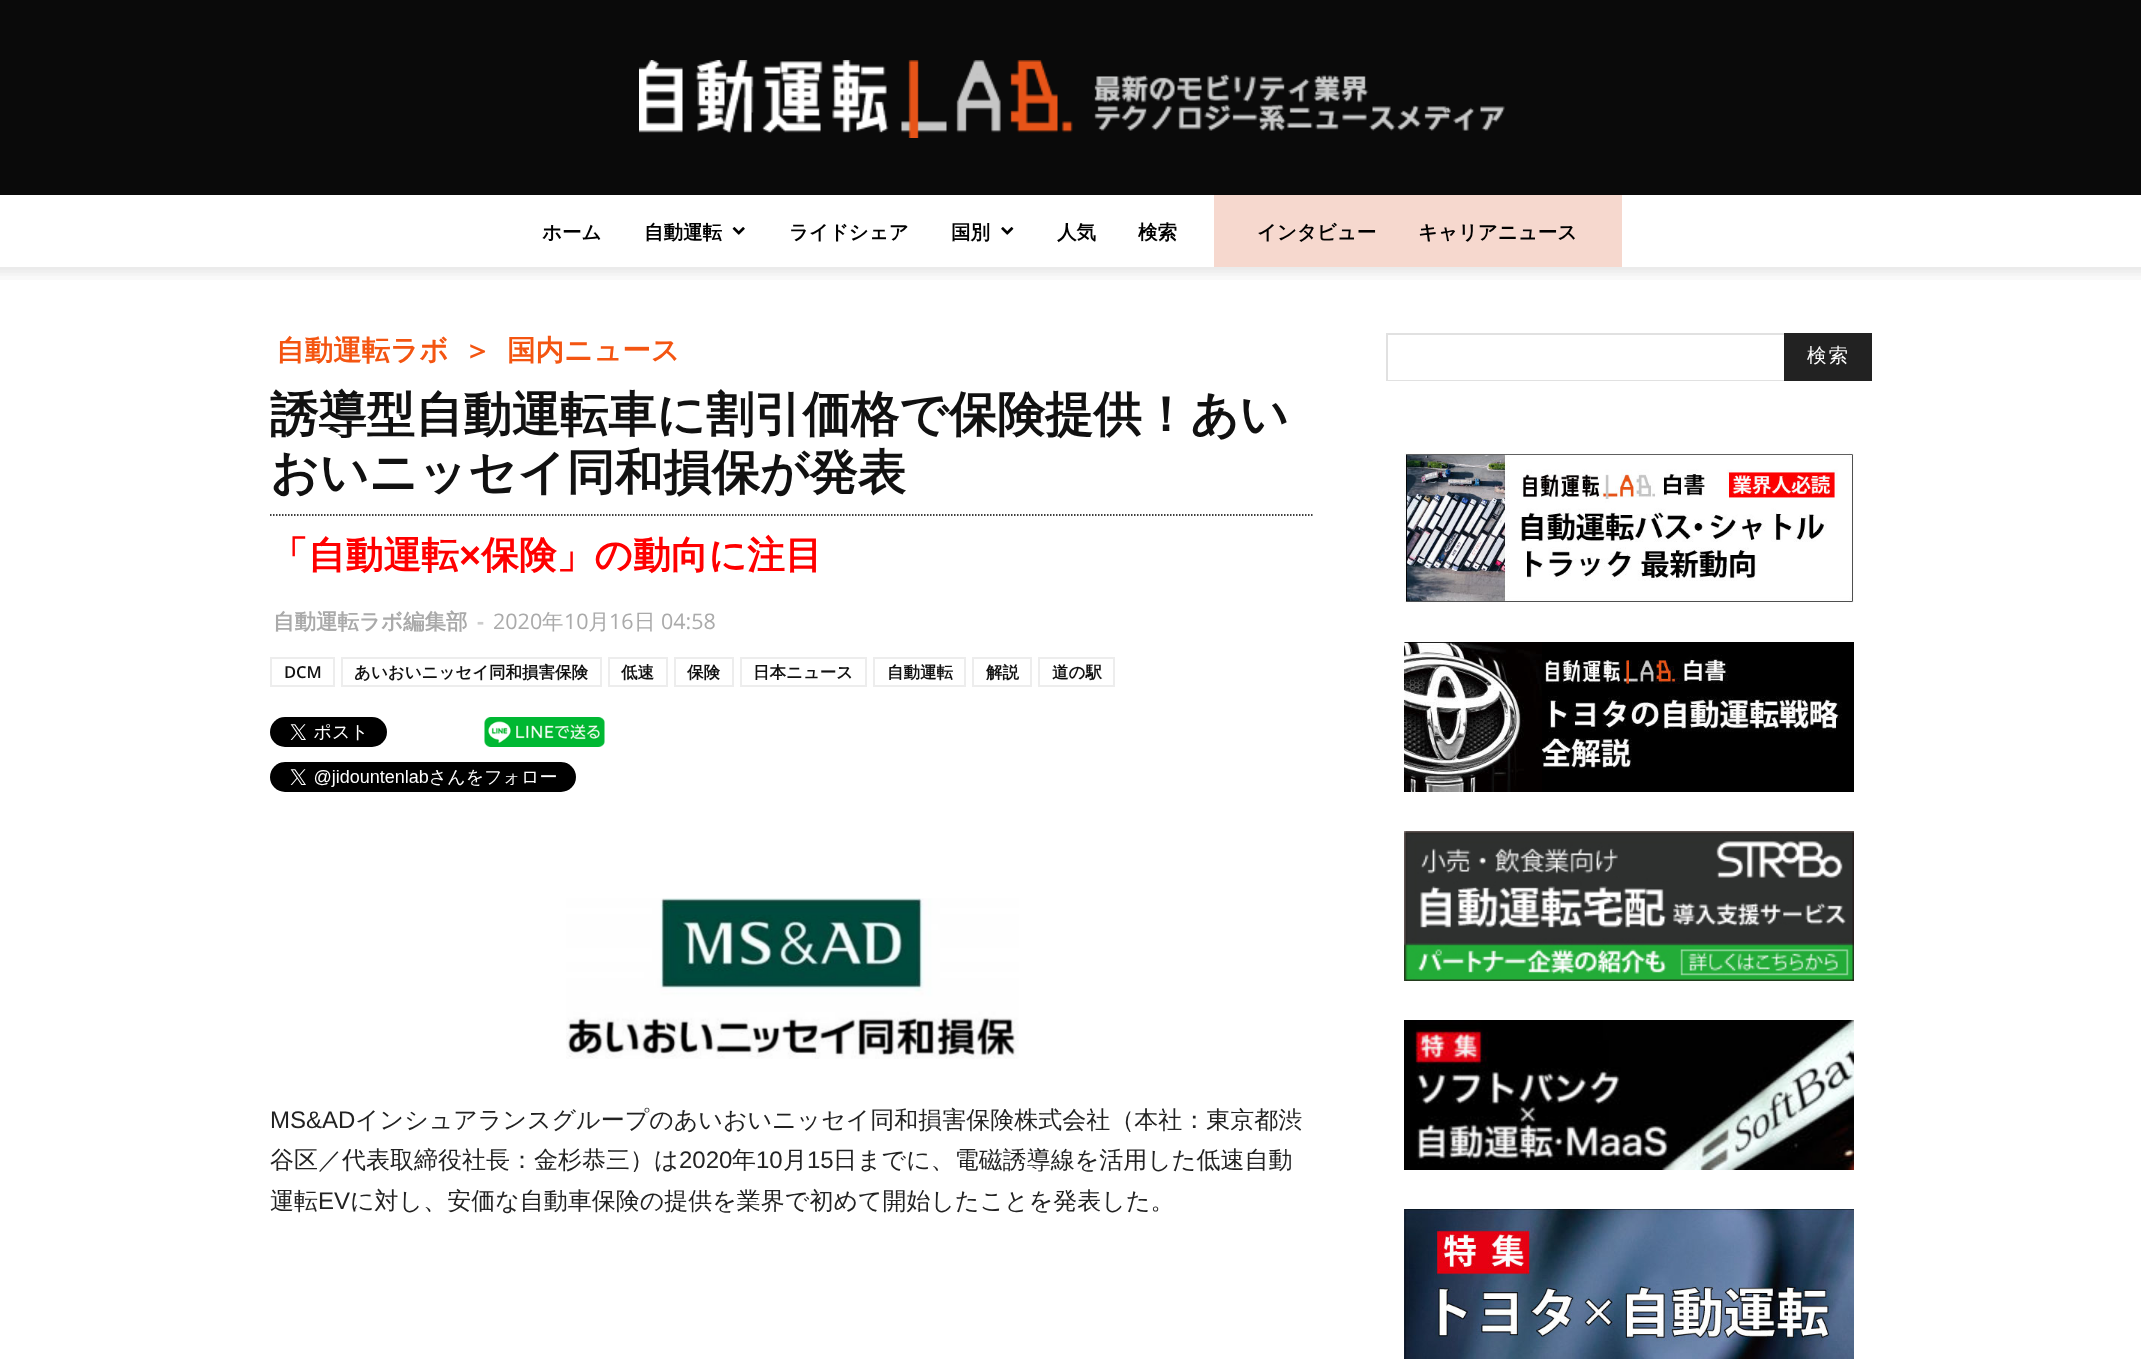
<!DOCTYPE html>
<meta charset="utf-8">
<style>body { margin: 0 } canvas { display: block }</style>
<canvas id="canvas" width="2141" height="1361"></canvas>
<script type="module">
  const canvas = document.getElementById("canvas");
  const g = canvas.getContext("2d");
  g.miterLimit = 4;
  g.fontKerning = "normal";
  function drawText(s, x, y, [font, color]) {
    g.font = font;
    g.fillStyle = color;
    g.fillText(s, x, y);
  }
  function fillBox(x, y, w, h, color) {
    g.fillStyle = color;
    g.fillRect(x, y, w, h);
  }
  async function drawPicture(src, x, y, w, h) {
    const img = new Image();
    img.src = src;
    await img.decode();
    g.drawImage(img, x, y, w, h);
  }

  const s1 = ["bold 19.5px WenQuanYi Zen Hei", "#000000"];
  const s2 = ["bold 28.5px WenQuanYi Zen Hei", "#F45511"];
  const s3 = ["bold 48.3px WenQuanYi Zen Hei", "#111111"];
  const s4 = ["bold 37.75px WenQuanYi Zen Hei", "#FF0000"];
  const s5 = ["bold 37.75px Liberation Sans", "#FF0000"];
  const s6 = ["bold 21.5px WenQuanYi Zen Hei", "#AAAAAA"];
  const s7 = ["bold 21.5px Open Sans", "#CCCCCC"];
  const s8 = ["21.5px Open Sans", "#AAAAAA"];
  const s9 = ["500 21.5px WenQuanYi Zen Hei", "#AAAAAA"];
  const s10 = ["600 16.5px Open Sans", "#111111"];
  const s11 = ["bold 16.5px WenQuanYi Zen Hei", "#111111"];
  const s12 = ["24px Liberation Sans", "#222222"];
  const s13 = ["500 24px WenQuanYi Zen Hei", "#222222"];
  const s14 = ["500 19.5px WenQuanYi Zen Hei", "#FFFFFF"];

  fillBox(0, 0, 2141, 1361, "#FFFFFF");
  fillBox(0, 0, 2141, 195, "#0A0A0A");
  await drawPicture("pic1.png", 639, 60, 866, 78);
  drawText("ホーム", 542, 239, s1);
  drawText("自動運転", 644, 239, s1);
  await drawPicture("pic2.png", 732, 227, 13, 8);
  drawText("ライドシェア", 789, 239, s1);
  drawText("国別", 951, 239, s1);
  await drawPicture("pic3.png", 1001, 227, 13, 8);
  drawText("人気", 1057, 239, s1);
  drawText("検索", 1138, 239, s1);
  fillBox(1214, 195, 408, 72, "#F6D8CE");
  drawText("インタビュー", 1257, 239, s1);
  drawText("キャリアニュース", 1418, 239, s1);
  await drawPicture("pic4.png", 0, 267, 2141, 13);
  drawText("自動運転ラボ", 276, 360, s2);
  drawText("＞", 463, 360, s2);
  drawText("国内ニュース", 507, 360, s2);
  g.beginPath();
  g.moveTo(270, 515);
  g.lineTo(1314, 515);
  g.strokeStyle = "#000000";
  g.lineWidth = 1.5;
  g.setLineDash([1.5, 1.5]);
  g.stroke();
  drawText("誘導型自動運転車に割引価格で保険提供！あい", 270, 431, s3);
  drawText("おいニッセイ同和損保が発表", 270, 489, s3);
  drawText("「自動運転", 270, 568, s4);
  drawText("×", 459, 568, s5);
  drawText("保険」の動向に注目", 481, 568, s4);
  drawText("自動運転ラボ編集部", 273, 629, s6);
  drawText("-", 477, 629, s7);
  drawText("2020", 493, 629, s8);
  drawText("年", 542, 629, s9);
  drawText("10", 564, 629, s8);
  drawText("月", 588, 629, s9);
  drawText("16", 609, 629, s8);
  drawText("日", 634, 629, s9);
  drawText("04:58", 661, 629, s8);
  g.strokeStyle = "#EDEDED";
  g.lineWidth = 2;
  g.setLineDash([]);
  g.strokeRect(271, 658, 63, 28);
  drawText("DCM", 284, 678, s10);
  g.strokeRect(342, 658, 259, 28);
  drawText("あいおいニッセイ同和損害保険", 354, 678, s11);
  g.strokeRect(609, 658, 58, 28);
  drawText("低速", 621, 678, s11);
  g.strokeRect(675, 658, 58, 28);
  drawText("保険", 687, 678, s11);
  g.strokeRect(741, 658, 125, 28);
  drawText("日本ニュース", 753, 678, s11);
  g.strokeRect(874, 658, 91, 28);
  drawText("自動運転", 887, 678, s11);
  g.strokeRect(973, 658, 58, 28);
  drawText("解説", 986, 678, s11);
  g.strokeRect(1039, 658, 75, 28);
  drawText("道の駅", 1052, 678, s11);
  await drawPicture("pic5.png", 270, 717, 117, 30);
  await drawPicture("pic6.png", 484, 717, 121, 30);
  await drawPicture("pic7.png", 270, 762, 306, 30);
  await drawPicture("pic8.png", 566, 898, 453, 161);
  drawText("MS&AD", 270, 1128, s12);
  drawText("インシュアランスグループのあいおいニッセイ同和損害保険株式会社（本社：東京都渋", 355, 1128, s13);
  drawText("谷区／代表取締役社長：金杉恭三）は", 270, 1168, s13);
  drawText("2020", 679, 1168, s12);
  drawText("年", 732, 1168, s13);
  drawText("10", 756, 1168, s12);
  drawText("月", 783, 1168, s13);
  drawText("15", 807, 1168, s12);
  drawText("日までに、電磁誘導線を活用した低速自動", 833, 1168, s13);
  drawText("運転", 270, 1209, s13);
  drawText("EV", 318, 1209, s12);
  drawText("に対し、安価な自動車保険の提供を業界で初めて開始したことを発表した。", 350, 1209, s13);
  fillBox(1386, 333, 398, 2, "#E1E1E1");
  fillBox(1386, 380, 398, 1, "#E1E1E1");
  fillBox(1386, 333, 2, 48, "#E1E1E1");
  fillBox(1784, 333, 88, 48, "#222222");
  g.letterSpacing = "2px";
  drawText("検索", 1807, 362, s14);
  await drawPicture("pic9.png", 1404, 453, 450, 150);
  await drawPicture("pic10.png", 1404, 642, 450, 150);
  await drawPicture("pic11.png", 1404, 831, 450, 150);
  await drawPicture("pic12.png", 1404, 1020, 450, 150);
  await drawPicture("pic13.png", 1404, 1209, 450, 150);
</script>
